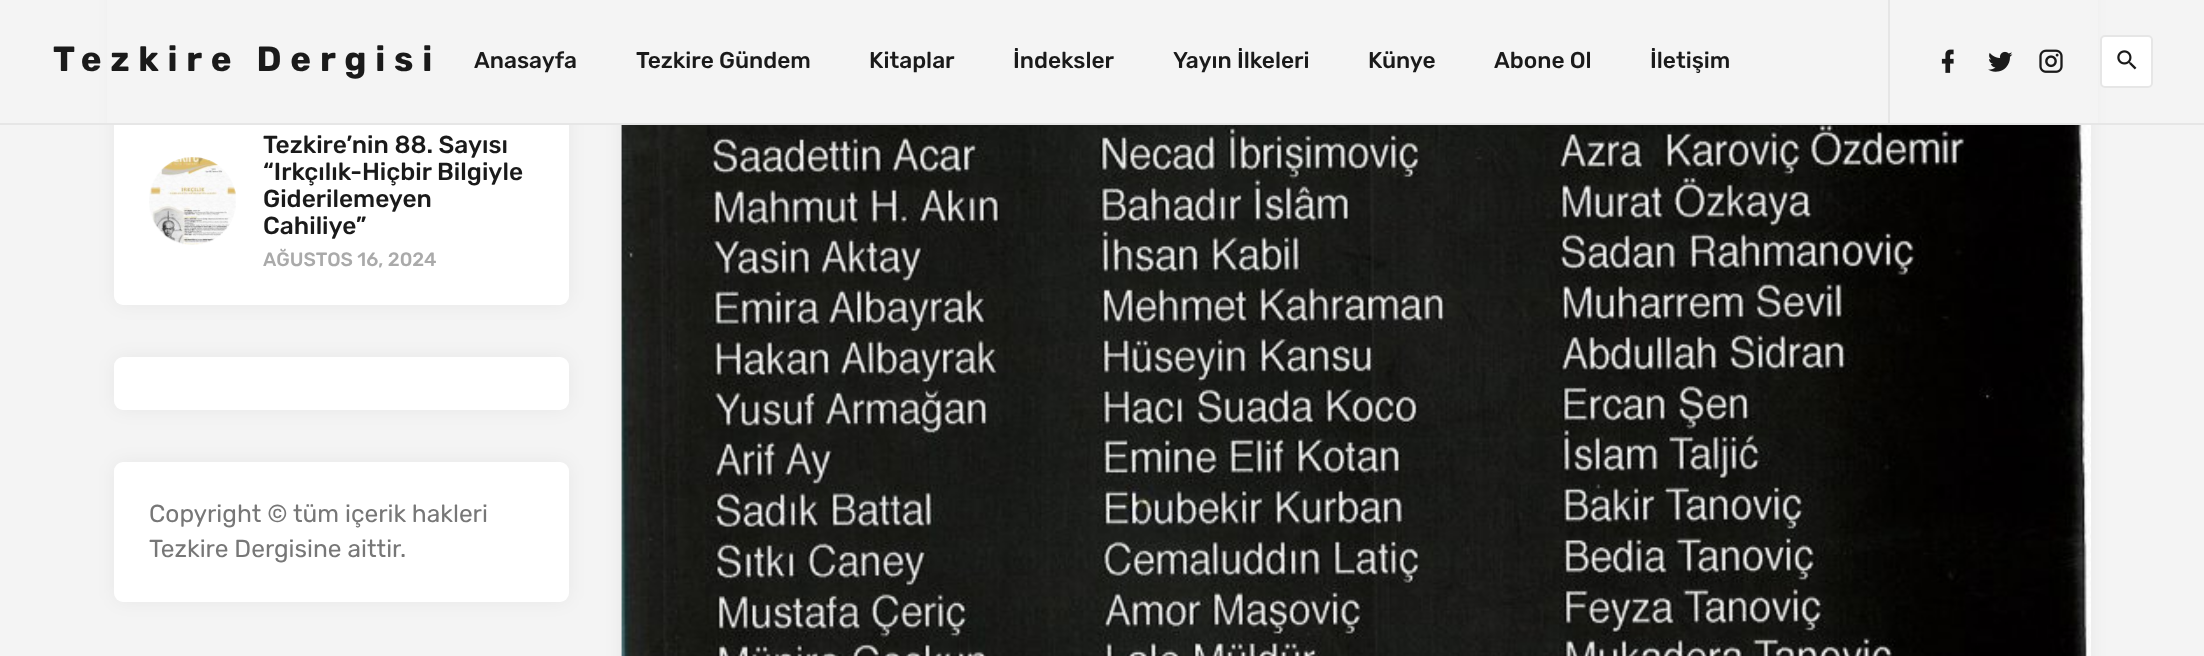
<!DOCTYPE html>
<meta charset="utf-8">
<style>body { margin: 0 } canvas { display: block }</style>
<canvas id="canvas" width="2204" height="656"></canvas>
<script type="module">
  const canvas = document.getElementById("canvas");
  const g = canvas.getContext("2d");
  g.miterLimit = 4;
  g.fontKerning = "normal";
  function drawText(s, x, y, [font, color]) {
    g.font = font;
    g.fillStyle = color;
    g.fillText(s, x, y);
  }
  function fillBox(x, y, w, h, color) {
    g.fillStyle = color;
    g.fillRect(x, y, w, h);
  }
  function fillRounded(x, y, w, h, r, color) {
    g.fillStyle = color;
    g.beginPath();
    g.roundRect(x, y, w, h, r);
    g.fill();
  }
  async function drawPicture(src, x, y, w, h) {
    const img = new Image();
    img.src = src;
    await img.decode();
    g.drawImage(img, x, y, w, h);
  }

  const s1 = ["bold 35px Rubik", "#1A1A1A"];
  const s2 = ["500 22.75px Rubik", "#1A1A1A"];
  const s3 = ["500 24.5px Rubik", "#1A1A1A"];
  const s4 = ["500 19.25px Rubik", "#AAAAAA"];
  const s5 = ["24.5px Rubik", "#777777"];

  fillBox(0, 0, 2204, 656, "#F4F4F4");
  g.fillStyle = "rgba(0, 0, 0, 0.05)";
  g.filter = "blur(9px)";
  g.beginPath();
  g.roundRect(114, -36, 455, 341, 9);
  g.fill();
  g.filter = "none";
  fillRounded(114, -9, 455, 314, 9, "#FFFFFF");
  g.fillStyle = "rgba(0, 0, 0, 0.05)";
  g.filter = "blur(9px)";
  g.beginPath();
  g.roundRect(621, -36, 1470, 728, 9);
  g.fill();
  g.filter = "none";
  fillBox(107, 0, 1991, 123, "#F4F4F4");
  fillBox(0, 123, 2204, 2, "#E6E6E6");
  g.letterSpacing = "8.75px";
  drawText("Tezkire Dergisi", 53, 71, s1);
  g.letterSpacing = "0px";
  drawText("Anasayfa", 474, 68, s2);
  drawText("Tezkire Gündem", 636, 68, s2);
  drawText("Kitaplar", 869, 68, s2);
  drawText("İndeksler", 1013, 68, s2);
  drawText("Yayın İlkeleri", 1173, 68, s2);
  drawText("Künye", 1368, 68, s2);
  drawText("Abone Ol", 1494, 68, s2);
  drawText("İletişim", 1650, 68, s2);
  fillBox(1888, 0, 2, 123, "#E6E6E6");
  await drawPicture("pic1.png", 1941, 49, 13, 24);
  await drawPicture("pic2.png", 1988, 51, 25, 21);
  await drawPicture("pic3.png", 2039, 49, 24, 24);
  g.fillStyle = "#FFFFFF";
  g.beginPath();
  g.roundRect(2101, 36, 51, 51, 4);
  g.fill();
  g.strokeStyle = "#E6E6E6";
  g.lineWidth = 2;
  g.stroke();
  await drawPicture("pic4.png", 2117, 50, 20, 20);
  await drawPicture("pic5.png", 149, 157, 87, 88);
  drawText("Tezkire’nin 88. Sayısı", 263, 153, s3);
  drawText("“Irkçılık-Hiçbir Bilgiyle", 263, 180, s3);
  drawText("Giderilemeyen", 263, 207, s3);
  drawText("Cahiliye”", 263, 234, s3);
  drawText("AĞUSTOS 16, 2024", 263, 266, s4);
  g.fillStyle = "rgba(0, 0, 0, 0.05)";
  g.filter = "blur(9px)";
  g.beginPath();
  g.roundRect(114, 357, 455, 53, 9);
  g.fill();
  g.filter = "none";
  fillRounded(114, 357, 455, 53, 9, "#FFFFFF");
  g.fillStyle = "rgba(0, 0, 0, 0.05)";
  g.filter = "blur(9px)";
  g.beginPath();
  g.roundRect(114, 462, 455, 140, 9);
  g.fill();
  g.filter = "none";
  fillRounded(114, 462, 455, 140, 9, "#FFFFFF");
  drawText("Copyright © tüm içerik hakleri", 149, 522, s5);
  drawText("Tezkire Dergisine aittir.", 149, 557, s5);
  await drawPicture("pic6.png", 621, 125, 1470, 531);
</script>
